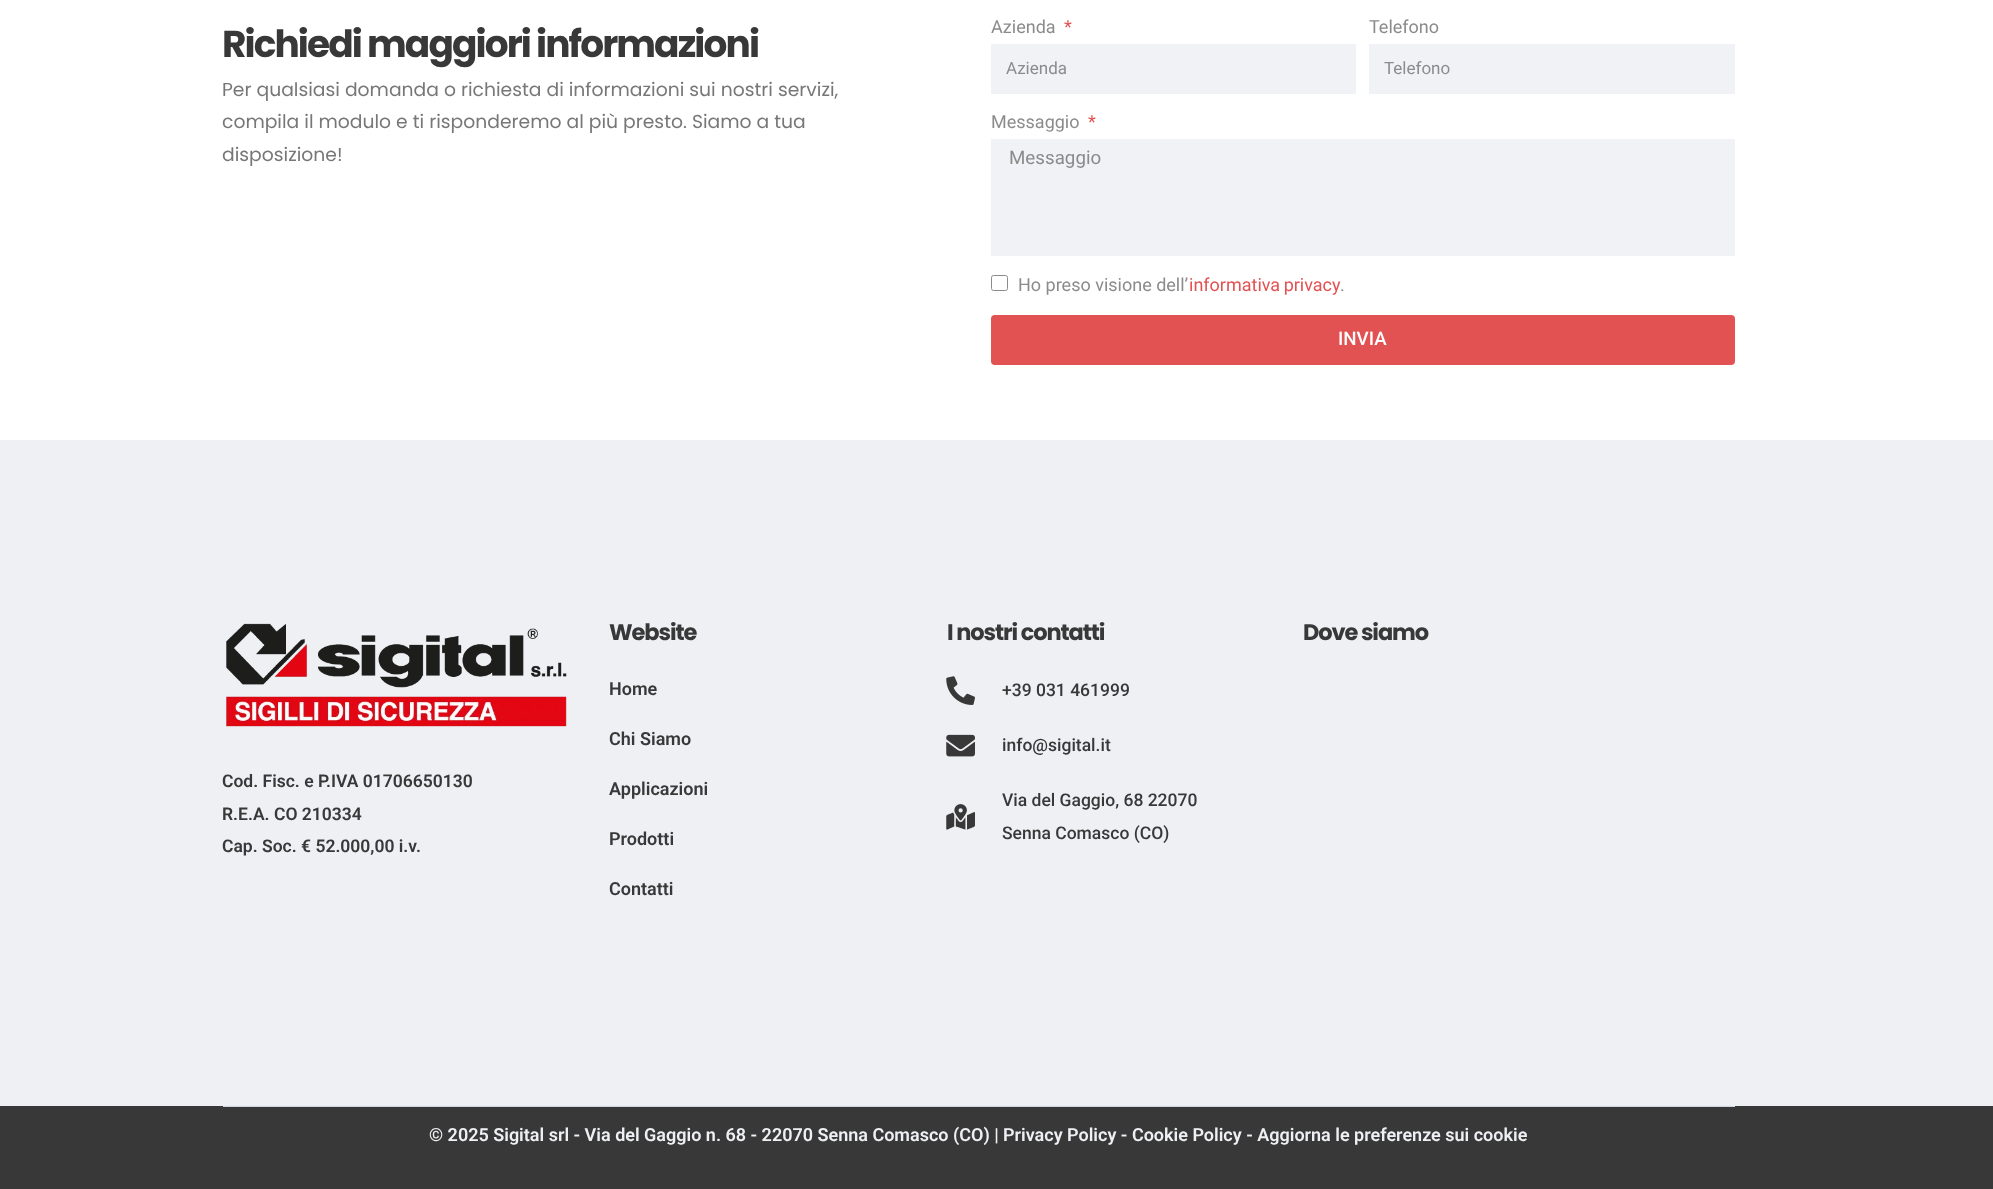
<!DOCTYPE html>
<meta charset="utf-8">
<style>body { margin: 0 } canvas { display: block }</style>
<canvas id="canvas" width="1993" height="1189"></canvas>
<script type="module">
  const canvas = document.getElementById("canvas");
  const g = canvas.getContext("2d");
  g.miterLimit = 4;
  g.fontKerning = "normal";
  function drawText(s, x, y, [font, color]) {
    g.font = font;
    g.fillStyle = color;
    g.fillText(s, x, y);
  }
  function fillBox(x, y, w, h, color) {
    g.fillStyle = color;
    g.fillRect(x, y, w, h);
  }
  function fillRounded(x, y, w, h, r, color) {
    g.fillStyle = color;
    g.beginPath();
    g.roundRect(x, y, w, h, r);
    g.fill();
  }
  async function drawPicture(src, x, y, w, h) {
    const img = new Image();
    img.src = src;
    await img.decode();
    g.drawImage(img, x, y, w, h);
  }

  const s1 = ["bold 37.5px Poppins", "#383838"];
  const s2 = ["18.75px Poppins", "#777777"];
  const s3 = ["18px Roboto", "#8B8B8B"];
  const s4 = ["18px Roboto", "#E25252"];
  const s5 = ["17px Roboto", "#8B8B8B"];
  const s6 = ["18.75px Roboto", "#8B8B8B"];
  const s7 = ["500 18.75px Roboto", "#FFFFFF"];
  const s8 = ["bold 22.5px Poppins", "#383838"];
  const s9 = ["600 18px Roboto", "#383838"];
  const s10 = ["500 17.5px Roboto", "#383838"];
  const s11 = ["600 17.5px Roboto", "#383838"];
  const s12 = ["600 18px Roboto", "#EEF0F4"];

  fillBox(0, 0, 1993, 1189, "#FFFFFF");
  g.letterSpacing = "-1.9px";
  drawText("Richiedi maggiori informazioni", 222, 57, s1);
  g.letterSpacing = "0px";
  drawText("Per qualsiasi domanda o richiesta di informazioni sui nostri servizi,", 222, 96, s2);
  drawText("compila il modulo e ti risponderemo al più presto. Siamo a tua", 222, 128, s2);
  drawText("disposizione!", 222, 161, s2);
  drawText("Azienda", 991, 33, s3);
  drawText("*", 1064, 33, s4);
  fillBox(991, 44, 365, 50, "#F1F2F6");
  drawText("Azienda", 1006, 74, s5);
  drawText("Telefono", 1369, 33, s3);
  fillBox(1369, 44, 366, 50, "#F1F2F6");
  drawText("Telefono", 1384, 74, s5);
  drawText("Messaggio", 991, 128, s3);
  drawText("*", 1088, 128, s4);
  fillBox(991, 139, 744, 117, "#F1F2F6");
  drawText("Messaggio", 1009, 164, s6);
  g.beginPath();
  g.roundRect(991.5, 275.5, 16, 15, 2);
  g.strokeStyle = "#8B8B8B";
  g.stroke();
  drawText("Ho preso visione dell’", 1018, 291, s3);
  g.wordSpacing = "-1px";
  drawText("informativa privacy", 1189, 291, s4);
  g.wordSpacing = "0px";
  drawText(".", 1340, 291, s3);
  fillRounded(991, 315, 744, 50, 4, "#E25252");
  drawText("INVIA", 1338, 345, s7);
  fillBox(0, 440, 1993, 666, "#EEF0F4");
  g.letterSpacing = "-1.1px";
  drawText("Website", 609, 640, s8);
  g.letterSpacing = "0px";
  drawText("Home", 609, 695, s9);
  drawText("Chi Siamo", 609, 745, s9);
  drawText("Applicazioni", 609, 795, s9);
  drawText("Prodotti", 609, 845, s9);
  drawText("Contatti", 609, 895, s9);
  g.letterSpacing = "-1.1px";
  drawText("I nostri contatti", 947, 640, s8);
  await drawPicture("pic1.png", 946, 676, 29, 29);
  g.letterSpacing = "0px";
  drawText("+39 031 461999", 1002, 696, s10);
  await drawPicture("pic2.png", 946, 734, 29, 23);
  drawText("info@sigital.it", 1002, 751, s10);
  await drawPicture("pic3.png", 946, 804, 29, 26);
  drawText("Via del Gaggio, 68 22070", 1002, 806, s10);
  drawText("Senna Comasco (CO)", 1002, 839, s10);
  g.letterSpacing = "-1.1px";
  drawText("Dove siamo", 1303, 640, s8);
  await drawPicture("pic4.png", 226, 623, 341, 104);
  g.letterSpacing = "0px";
  drawText("Cod. Fisc. e P.IVA 01706650130", 222, 787, s11);
  drawText("R.E.A. CO 210334", 222, 820, s11);
  drawText("Cap. Soc. € 52.000,00 i.v.", 222, 852, s11);
  fillBox(0, 1106, 1993, 83, "#383838");
  fillBox(223, 1106, 1512, 1, "#CED6E1");
  drawText("© 2025 Sigital srl - Via del Gaggio n. 68 - 22070 Senna Comasco (CO) |", 429, 1141, s12);
  drawText("Privacy Policy - Cookie Policy - Aggiorna le preferenze sui cookie", 1003, 1141, s12);
</script>
